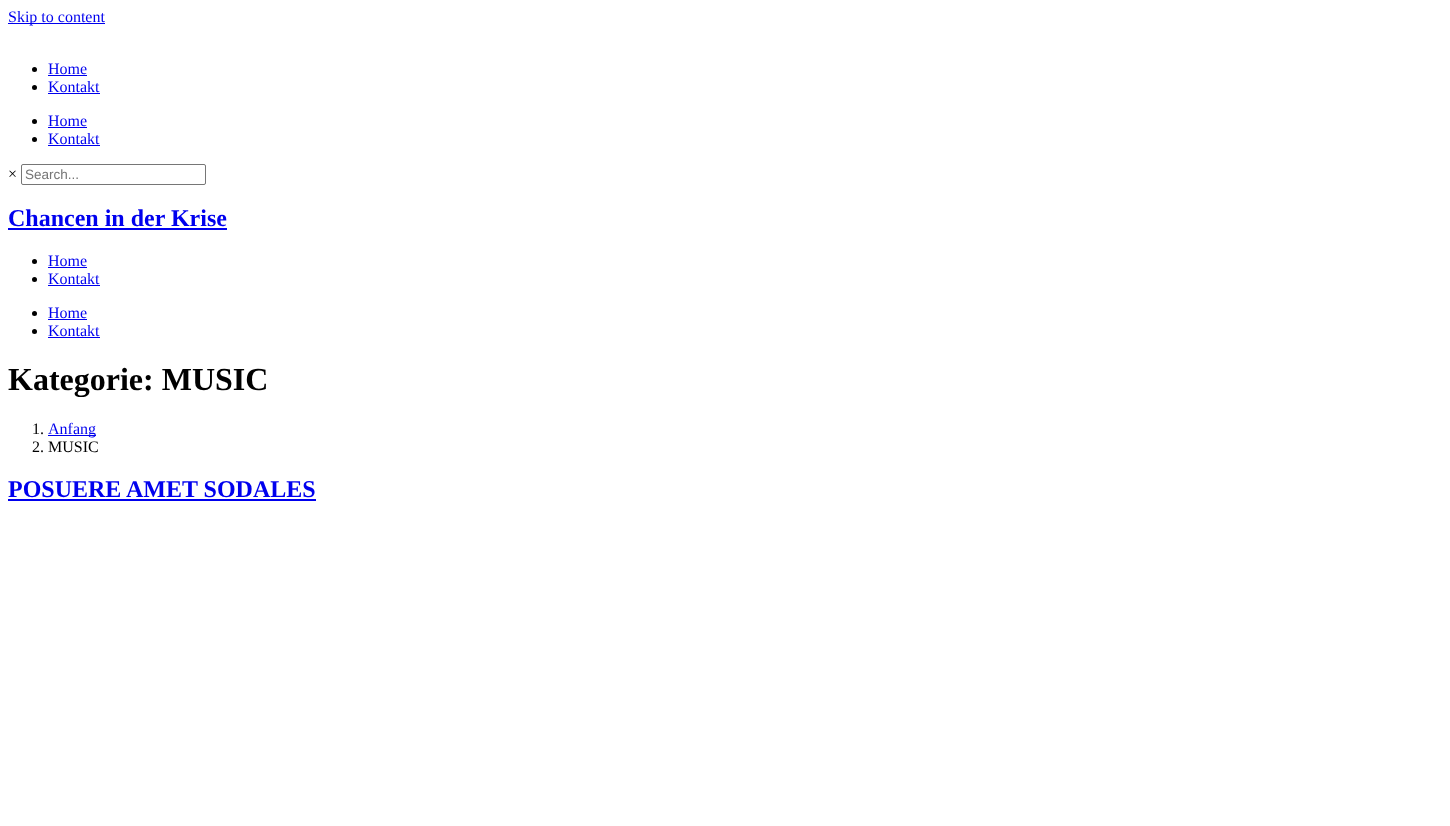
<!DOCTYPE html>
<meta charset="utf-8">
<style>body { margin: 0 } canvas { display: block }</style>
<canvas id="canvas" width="1450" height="826"></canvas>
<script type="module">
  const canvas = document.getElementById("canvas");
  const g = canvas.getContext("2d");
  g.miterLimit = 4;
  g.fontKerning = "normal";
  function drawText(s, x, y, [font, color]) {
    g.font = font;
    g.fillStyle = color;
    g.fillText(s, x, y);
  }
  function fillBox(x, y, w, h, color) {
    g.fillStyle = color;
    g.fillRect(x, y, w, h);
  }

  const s1 = ["16px Liberation Serif", "#0000EE"];
  const s2 = ["16px Liberation Serif", "#000000"];
  const s3 = ["13.5px Liberation Sans", "#757575"];
  const s4 = ["bold 24px Liberation Serif", "#0000EE"];
  const s5 = ["bold 32px Liberation Serif", "#000000"];

  fillBox(0, 0, 1450, 826, "#FFFFFF");
  fillBox(8, 23, 97, 1, "#0000EE");
  drawText("Skip to content", 8, 22, s1);
  g.fillStyle = "#000000";
  g.beginPath();
  g.arc(34.5, 69.5, 2.5, 0, Math.PI * 2);
  g.fill();
  drawText("Home", 48, 74, s1);
  fillBox(48, 75, 39, 1, "#0000EE");
  g.fillStyle = "#000000";
  g.beginPath();
  g.arc(34.5, 87.5, 2.5, 0, Math.PI * 2);
  g.fill();
  drawText("Kontakt", 48, 92, s1);
  fillBox(48, 93, 52, 1, "#0000EE");
  g.fillStyle = "#000000";
  g.beginPath();
  g.arc(34.5, 121.5, 2.5, 0, Math.PI * 2);
  g.fill();
  drawText("Home", 48, 126, s1);
  fillBox(48, 127, 39, 1, "#0000EE");
  g.fillStyle = "#000000";
  g.beginPath();
  g.arc(34.5, 139.5, 2.5, 0, Math.PI * 2);
  g.fill();
  drawText("Kontakt", 48, 144, s1);
  fillBox(48, 145, 52, 1, "#0000EE");
  drawText("×", 8, 179, s2);
  g.beginPath();
  g.roundRect(21.5, 164.5, 184, 20, 1.5);
  g.strokeStyle = "#767676";
  g.stroke();
  drawText("Search...", 25, 179, s3);
  drawText("Chancen in der Krise", 8, 226, s4);
  fillBox(8, 228, 219, 2, "#0000EE");
  g.fillStyle = "#000000";
  g.beginPath();
  g.arc(34.5, 261.5, 2.5, 0, Math.PI * 2);
  g.fill();
  drawText("Home", 48, 266, s1);
  fillBox(48, 267, 39, 1, "#0000EE");
  g.fillStyle = "#000000";
  g.beginPath();
  g.arc(34.5, 279.5, 2.5, 0, Math.PI * 2);
  g.fill();
  drawText("Kontakt", 48, 284, s1);
  fillBox(48, 285, 52, 1, "#0000EE");
  g.fillStyle = "#000000";
  g.beginPath();
  g.arc(34.5, 313.5, 2.5, 0, Math.PI * 2);
  g.fill();
  drawText("Home", 48, 318, s1);
  fillBox(48, 319, 39, 1, "#0000EE");
  g.fillStyle = "#000000";
  g.beginPath();
  g.arc(34.5, 331.5, 2.5, 0, Math.PI * 2);
  g.fill();
  drawText("Kontakt", 48, 336, s1);
  fillBox(48, 337, 52, 1, "#0000EE");
  drawText("Kategorie: MUSIC", 8, 390, s5);
  drawText("1.", 32, 434, s2);
  fillBox(48, 435, 48, 1, "#0000EE");
  drawText("Anfang", 48, 434, s1);
  drawText("2. MUSIC", 32, 452, s2);
  drawText("POSUERE AMET SODALES", 8, 497, s4);
  fillBox(8, 499, 308, 2, "#0000EE");
</script>
